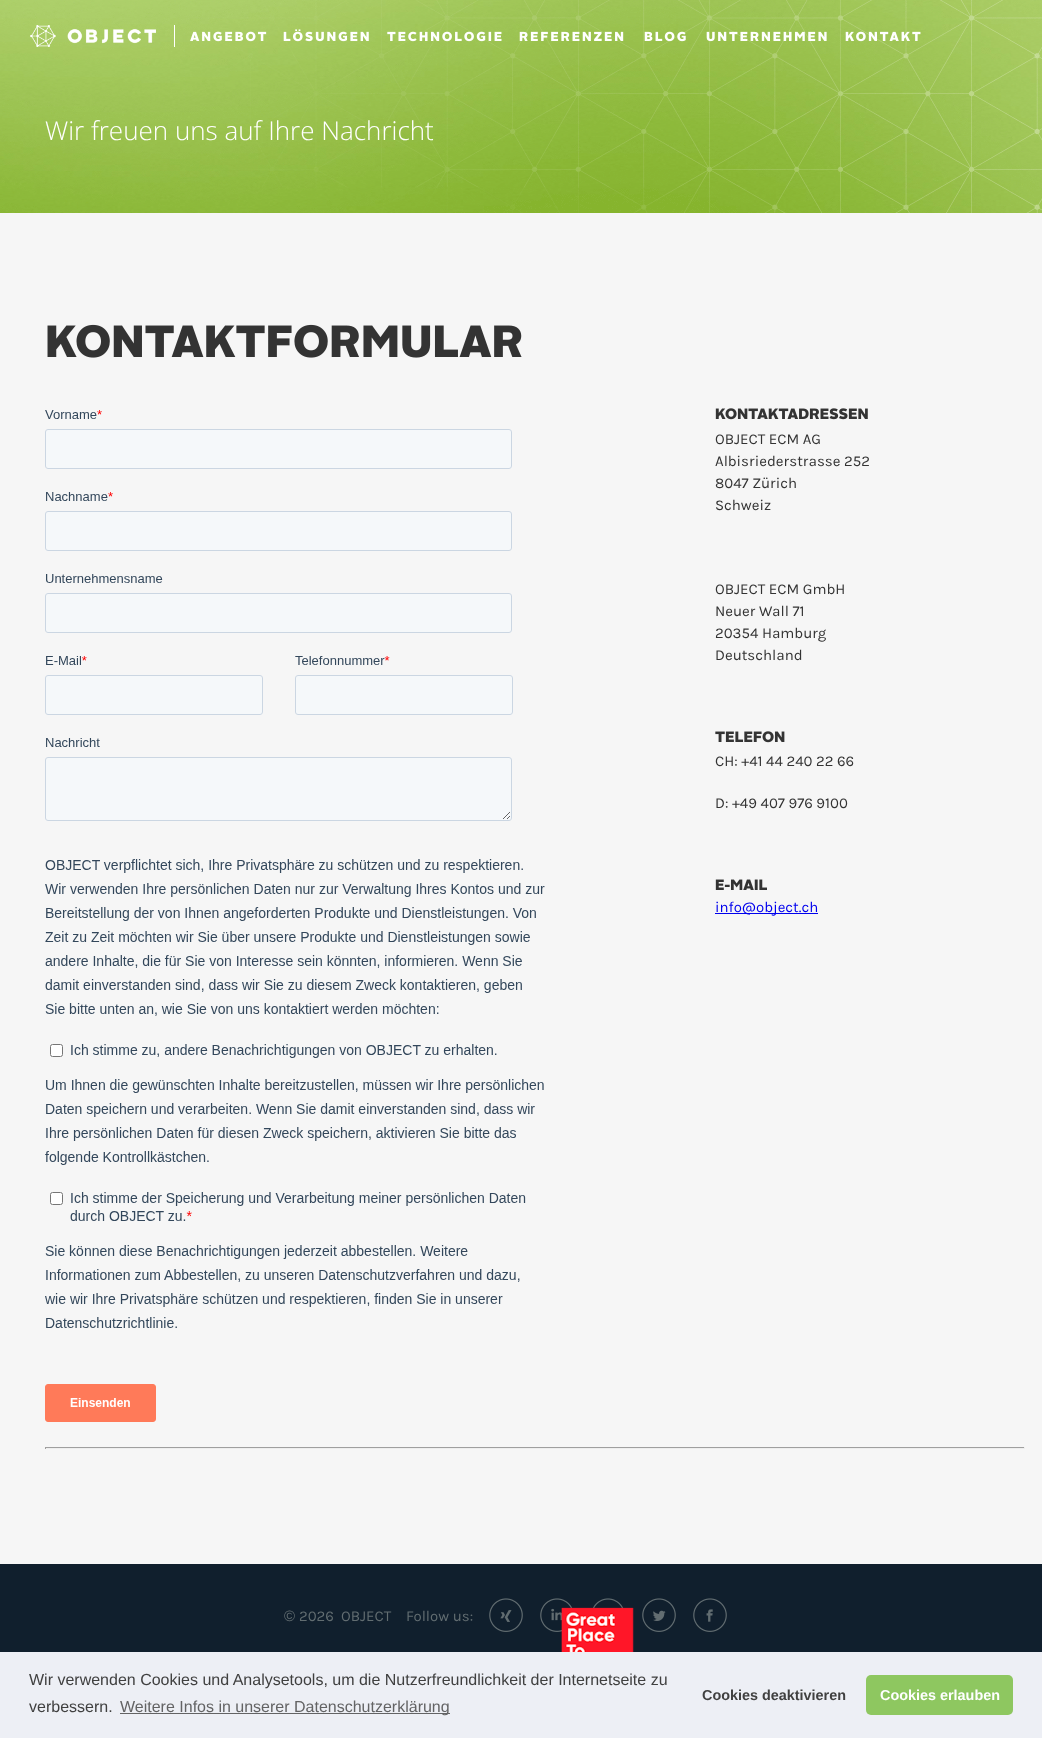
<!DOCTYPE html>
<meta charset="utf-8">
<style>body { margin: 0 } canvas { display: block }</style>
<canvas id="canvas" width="1042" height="1738"></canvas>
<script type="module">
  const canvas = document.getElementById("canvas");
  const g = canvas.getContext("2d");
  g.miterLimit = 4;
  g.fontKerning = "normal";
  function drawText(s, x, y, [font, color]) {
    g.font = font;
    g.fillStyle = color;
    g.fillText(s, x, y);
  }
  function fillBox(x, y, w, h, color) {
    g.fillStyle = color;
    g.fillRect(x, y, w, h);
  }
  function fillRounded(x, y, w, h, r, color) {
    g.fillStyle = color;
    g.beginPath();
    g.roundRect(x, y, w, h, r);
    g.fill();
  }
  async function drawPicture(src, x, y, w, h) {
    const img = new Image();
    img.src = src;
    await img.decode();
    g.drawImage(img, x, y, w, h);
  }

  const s1 = ["300 26px Open Sans", "#FFFFFF"];
  const s2 = ["15px Karla", "#333333"];
  const s3 = ["15px Karla", "#0000EE"];
  const s4 = ["15px Liberation Sans", "#626D71"];
  const s5 = ["15px Karla", "#626D71"];
  const s6 = ["16px Liberation Sans", "#404040"];
  const s7 = ["16px Liberation Sans", "#636364"];
  const s8 = ["bold 14.4px Liberation Sans", "#404040"];
  const s9 = ["bold 14.4px Liberation Sans", "#FFFFFF"];

  fillBox(0, 0, 1042, 1738, "#F6F6F6");
  await drawPicture("pic1.png", 0, 0, 1042, 213);
  fillBox(174, 25, 1, 22, "#FFFFFF");
  await drawPicture("pic2.png", 30, 25, 126, 22);
  await drawPicture("pic3.png", 190, 31, 77, 11);
  await drawPicture("pic4.png", 283, 29, 86, 13);
  await drawPicture("pic5.png", 387, 31, 115, 11);
  await drawPicture("pic6.png", 519, 31, 105, 10);
  await drawPicture("pic7.png", 644, 31, 42, 11);
  await drawPicture("pic8.png", 706, 31, 121, 11);
  await drawPicture("pic9.png", 845, 31, 76, 11);
  drawText("Wir freuen uns auf Ihre Nachricht", 45, 140, s1);
  await drawPicture("pic10.png", 47, 324, 475, 34);
  await drawPicture("pic11.png", 45, 410, 500, 1012);
  await drawPicture("pic12.png", 715, 408, 153, 12);
  drawText("OBJECT ECM AG", 715, 444, s2);
  drawText("Albisriederstrasse 252", 715, 466, s2);
  drawText("8047 Zürich", 715, 488, s2);
  drawText("Schweiz", 715, 510, s2);
  drawText("OBJECT ECM GmbH", 715, 594, s2);
  drawText("Neuer Wall 71", 715, 616, s2);
  drawText("20354 Hamburg", 715, 638, s2);
  drawText("Deutschland", 715, 660, s2);
  await drawPicture("pic13.png", 715, 731, 70, 12);
  drawText("CH: +41 44 240 22 66", 715, 766, s2);
  drawText("D: +49 407 976 9100", 715, 808, s2);
  await drawPicture("pic14.png", 715, 879, 52, 11);
  fillBox(715, 913, 103, 1, "#0000EE");
  drawText("info@object.ch", 715, 912, s3);
  fillBox(45, 1447, 980, 1, "#9F9F9F");
  fillBox(1024, 1447, 1, 2, "#EEEEEE");
  fillBox(45, 1448, 980, 1, "#EEEEEE");
  fillBox(45, 1447, 1, 2, "#9F9F9F");
  fillBox(0, 1564, 1042, 88, "#101F2D");
  drawText("©", 284, 1621, s4);
  drawText("2026", 299, 1621, s5);
  drawText("OBJECT", 341, 1621, s5);
  drawText("Follow us:", 406, 1621, s5);
  await drawPicture("pic15.png", 489, 1598, 34, 34);
  await drawPicture("pic16.png", 540, 1598, 33, 34);
  await drawPicture("pic17.png", 592, 1598, 32, 11);
  await drawPicture("pic18.png", 642, 1598, 34, 34);
  await drawPicture("pic19.png", 693, 1598, 34, 34);
  await drawPicture("pic20.png", 561, 1607, 73, 45);
  fillBox(0, 1652, 1042, 86, "#EDEFF5");
  drawText("Wir verwenden Cookies und Analysetools, um die Nutzerfreundlichkeit der Internetseite zu", 29, 1685, s6);
  drawText("verbessern.", 29, 1712, s6);
  fillBox(120, 1713, 330, 1, "#636364");
  drawText("Weitere Infos in unserer Datenschutzerklärung", 120, 1712, s7);
  drawText("Cookies deaktivieren", 702, 1700, s8);
  fillRounded(866, 1675, 147, 40, 5, "#8EC760");
  drawText("Cookies erlauben", 880, 1700, s9);
</script>
